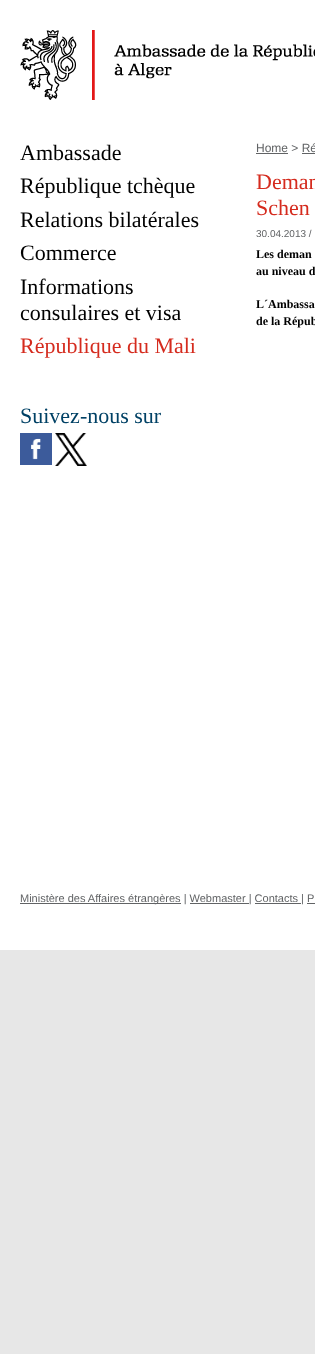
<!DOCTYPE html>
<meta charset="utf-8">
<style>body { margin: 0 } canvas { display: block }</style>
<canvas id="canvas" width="315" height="1354"></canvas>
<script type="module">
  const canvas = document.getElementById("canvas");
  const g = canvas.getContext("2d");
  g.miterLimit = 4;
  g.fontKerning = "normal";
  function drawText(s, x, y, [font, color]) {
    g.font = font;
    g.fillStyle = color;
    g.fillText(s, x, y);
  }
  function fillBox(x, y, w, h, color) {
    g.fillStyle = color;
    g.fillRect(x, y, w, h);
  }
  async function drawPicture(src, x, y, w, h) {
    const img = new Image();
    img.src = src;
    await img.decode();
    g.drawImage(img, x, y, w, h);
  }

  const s1 = ["22px Liberation Serif", "#000000"];
  const s2 = ["22px Liberation Serif", "#D52B1E"];
  const s3 = ["12px Liberation Sans", "#616365"];
  const s4 = ["10px Liberation Sans", "#616365"];
  const s5 = ["bold 12px Liberation Serif", "#000000"];
  const s6 = ["22px Liberation Serif", "#004165"];
  const s7 = ["11px Liberation Sans", "#616365"];

  fillBox(0, 0, 315, 1354, "#E7E7E7");
  fillBox(0, 0, 315, 950, "#FFFFFF");
  await drawPicture("pic1.png", 20, 30, 295, 70);
  drawText("Ambassade", 20, 160, s1);
  drawText("République tchèque", 20, 193, s1);
  drawText("Relations bilatérales", 20, 227, s1);
  drawText("Commerce", 20, 260, s1);
  drawText("Informations", 20, 294, s1);
  drawText("consulaires et visa", 20, 320, s1);
  drawText("République du Mali", 20, 353, s2);
  drawText("Home > Ré", 256, 152, s3);
  fillBox(256, 153, 32, 1, "#616365");
  fillBox(302, 153, 13, 1, "#616365");
  drawText("Deman", 256, 189, s2);
  drawText("Schen", 256, 215, s2);
  drawText("30.04.2013 /", 256, 237, s4);
  drawText("Les deman", 256, 258, s5);
  drawText("au niveau d", 256, 275, s5);
  drawText("L´Ambassa", 256, 308, s5);
  drawText("de la Répub", 256, 325, s5);
  drawText("Suivez-nous sur", 20, 423, s6);
  await drawPicture("pic2.png", 20, 433, 32, 32);
  await drawPicture("pic3.png", 55, 433, 32, 33);
  fillBox(20, 903, 161, 1, "#616365");
  drawText("Ministère des Affaires étrangères | Webmaster | Contacts | P", 20, 902, s7);
  fillBox(190, 903, 59, 1, "#616365");
  fillBox(255, 903, 46, 1, "#616365");
  fillBox(307, 903, 8, 1, "#616365");
</script>
